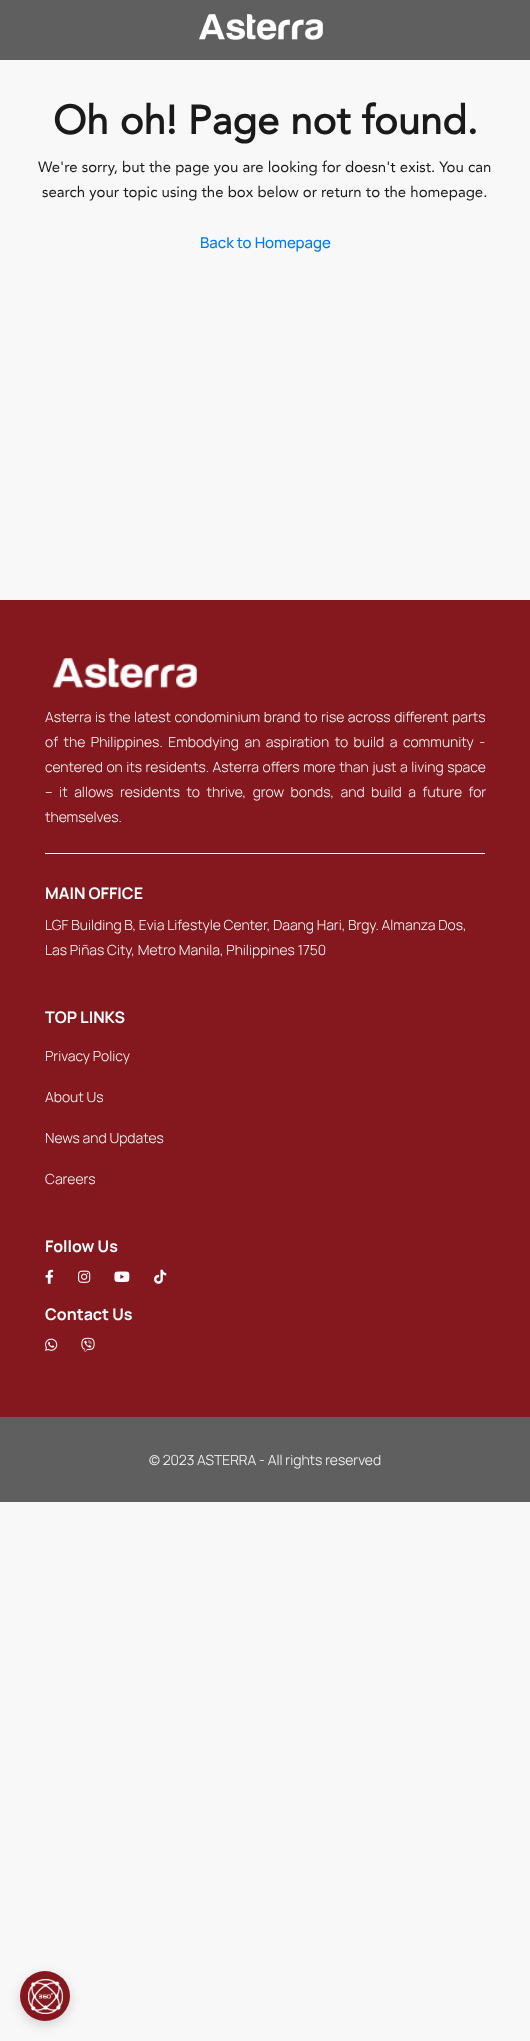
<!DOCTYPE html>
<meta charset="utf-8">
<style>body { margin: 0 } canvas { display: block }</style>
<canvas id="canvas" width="530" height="2041"></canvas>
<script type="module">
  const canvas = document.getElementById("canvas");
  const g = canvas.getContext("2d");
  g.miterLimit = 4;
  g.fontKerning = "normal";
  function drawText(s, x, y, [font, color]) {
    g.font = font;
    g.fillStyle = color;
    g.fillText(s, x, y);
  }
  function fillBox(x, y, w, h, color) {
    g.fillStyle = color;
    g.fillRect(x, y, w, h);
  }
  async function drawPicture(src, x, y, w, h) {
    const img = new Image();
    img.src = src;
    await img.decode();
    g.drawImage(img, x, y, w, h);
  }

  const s1 = ["bold 40px Avenir", "#1A1A1A"];
  const s2 = ["15px Avenir", "#1A1A1A"];
  const s3 = ["500 15px Manrope", "#007BFF"];
  const s4 = ["300 14px Manrope", "#FFFFFF"];
  const s5 = ["bold 16px Manrope", "#FFFFFF"];

  fillBox(0, 0, 530, 2041, "#F8F8F8");
  fillBox(0, 0, 530, 60, "#5F5F5F");
  await drawPicture("pic1.png", 199, 14, 124, 26);
  drawText("Oh oh! Page not found.", 53, 134, s1);
  drawText("We're sorry, but the page you are looking for doesn't exist. You can", 38, 172, s2);
  drawText("search your topic using the box below or return to the homepage.", 42, 197, s2);
  drawText("Back to Homepage", 200, 248, s3);
  fillBox(0, 600, 530, 817, "#85181E");
  await drawPicture("pic2.png", 53, 657, 144, 32);
  g.wordSpacing = "0.75px";
  drawText("Asterra is the latest condominium brand to rise across different parts", 45, 722, s4);
  g.wordSpacing = "2.75px";
  drawText("of the Philippines. Embodying an aspiration to build a community -", 45, 747, s4);
  g.wordSpacing = "0.75px";
  drawText("centered on its residents. Asterra offers more than just a living space", 45, 772, s4);
  g.wordSpacing = "3.75px";
  drawText("– it allows residents to thrive, grow bonds, and build a future for", 45, 797, s4);
  g.wordSpacing = "0px";
  drawText("themselves.", 45, 822, s4);
  fillBox(45, 853, 440, 1, "#FFFFFF");
  drawText("MAIN OFFICE", 45, 899, s5);
  drawText("LGF Building B, Evia Lifestyle Center, Daang Hari, Brgy. Almanza Dos,", 45, 930, s4);
  drawText("Las Piñas City, Metro Manila, Philippines 1750", 45, 955, s4);
  drawText("TOP LINKS", 45, 1023, s5);
  drawText("Privacy Policy", 45, 1061, s4);
  drawText("About Us", 45, 1102, s4);
  drawText("News and Updates", 45, 1143, s4);
  drawText("Careers", 45, 1184, s4);
  drawText("Follow Us", 45, 1252, s5);
  await drawPicture("pic3.png", 45, 1269, 9, 15);
  await drawPicture("pic4.png", 78, 1270, 13, 13);
  await drawPicture("pic5.png", 114, 1271, 16, 11);
  await drawPicture("pic6.png", 154, 1269, 13, 15);
  drawText("Contact Us", 45, 1320, s5);
  await drawPicture("pic7.png", 45, 1338, 13, 13);
  await drawPicture("pic8.png", 81, 1337, 14, 15);
  fillBox(0, 1417, 530, 85, "#5F5F5F");
  drawText("© 2023 ASTERRA - All rights reserved", 149, 1465, s4);
  g.fillStyle = "rgba(0, 0, 0, 0.15)";
  g.filter = "blur(6px)";
  g.beginPath();
  g.roundRect(20, 1975, 50, 50, 25);
  g.fill();
  g.filter = "none";
  g.fillStyle = "#85181E";
  g.beginPath();
  g.arc(45, 1996, 25, 0, Math.PI * 2);
  g.fill();
  await drawPicture("pic9.png", 28, 1979, 35, 35);
</script>
